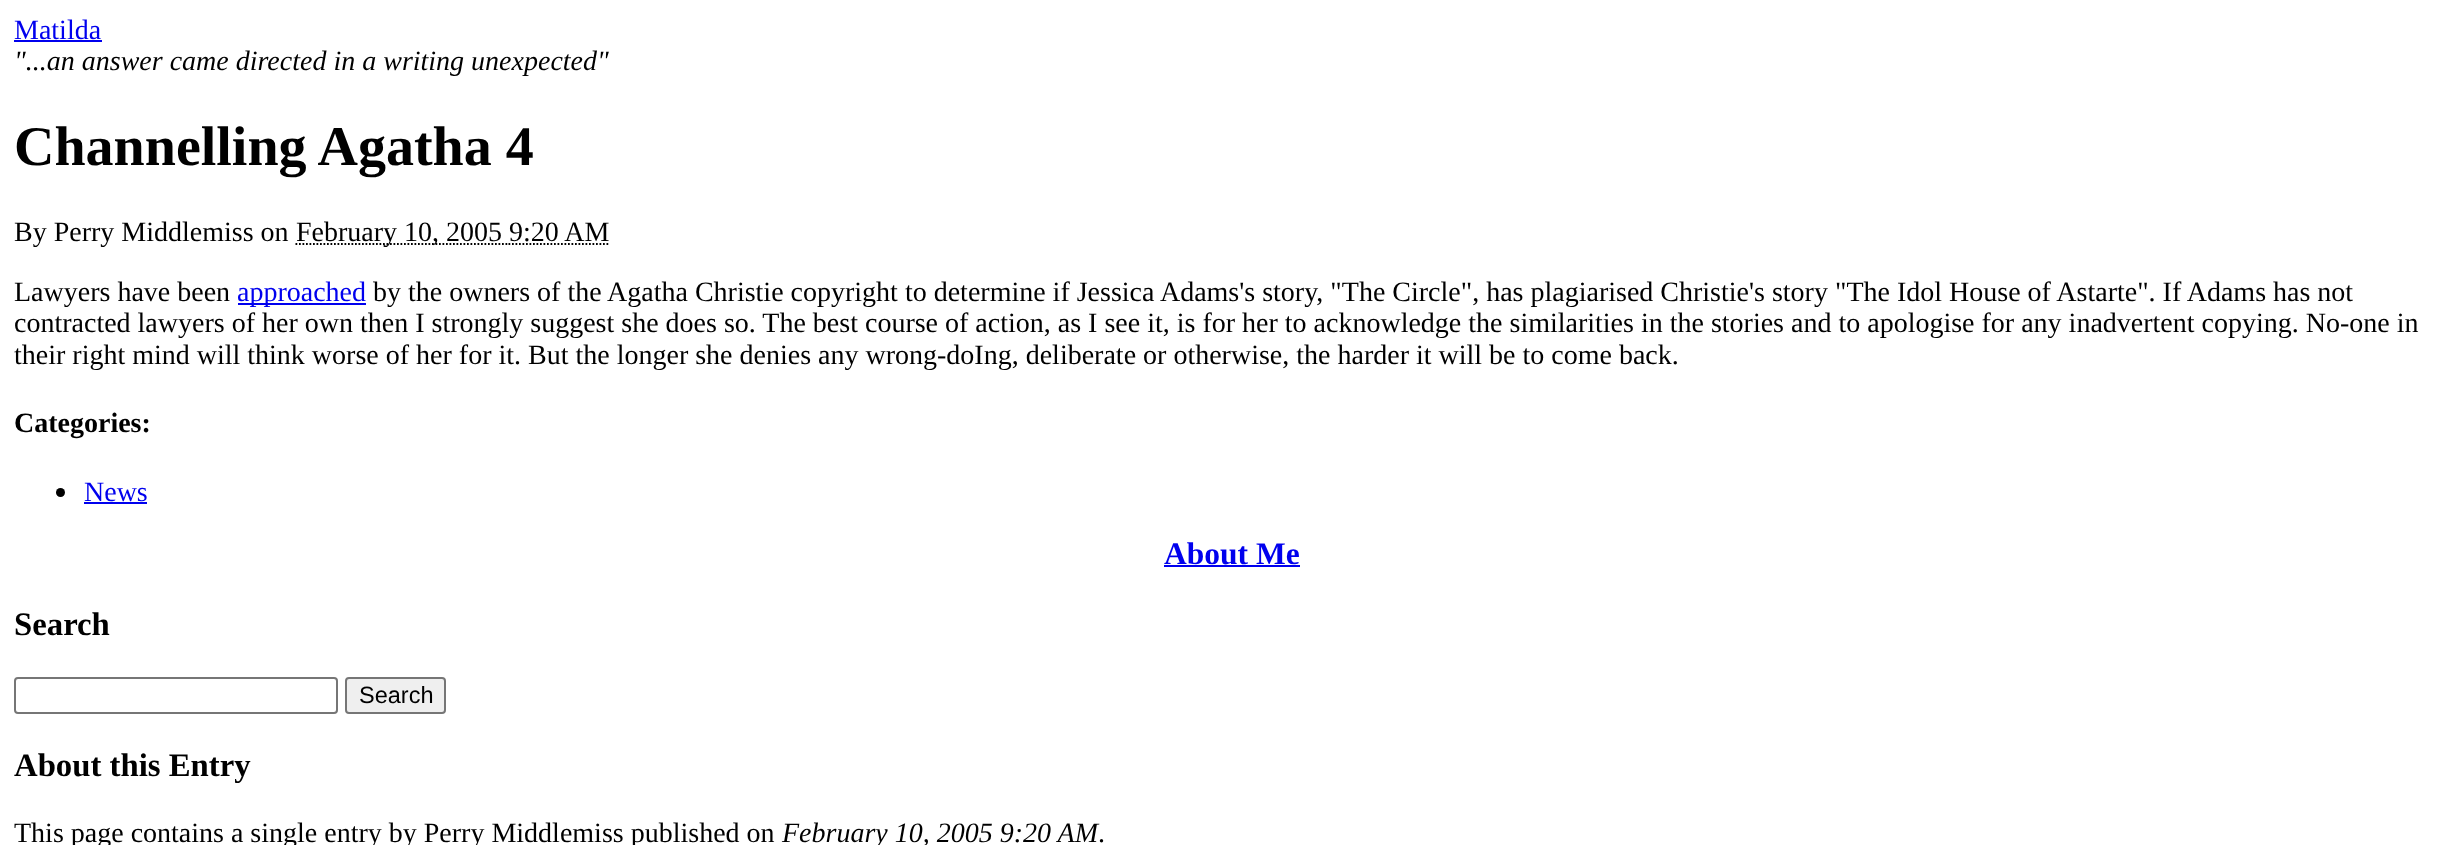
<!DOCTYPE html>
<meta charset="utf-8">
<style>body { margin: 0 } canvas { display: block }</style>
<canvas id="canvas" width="2464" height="845"></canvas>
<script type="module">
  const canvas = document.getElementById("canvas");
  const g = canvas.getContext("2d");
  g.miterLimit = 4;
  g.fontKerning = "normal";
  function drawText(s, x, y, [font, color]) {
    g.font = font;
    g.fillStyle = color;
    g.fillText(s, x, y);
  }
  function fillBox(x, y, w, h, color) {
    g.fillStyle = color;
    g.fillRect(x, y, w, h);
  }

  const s1 = ["28px Liberation Serif", "#0000EE"];
  const s2 = ["italic 28px Liberation Serif", "#000000"];
  const s3 = ["bold 56px Liberation Serif", "#000000"];
  const s4 = ["28px Liberation Serif", "#000000"];
  const s5 = ["bold 28px Liberation Serif", "#000000"];
  const s6 = ["bold 31.5px Liberation Serif", "#0000EE"];
  const s7 = ["bold 32.75px Liberation Serif", "#000000"];
  const s8 = ["23.5px Liberation Sans", "#000000"];

  fillBox(0, 0, 2464, 845, "#FFFFFF");
  drawText("Matilda", 14, 39, s1);
  fillBox(14, 40, 88, 2, "#0000EE");
  drawText("\"...an answer came directed in a writing unexpected\"", 14, 70, s2);
  drawText("Channelling Agatha 4", 14, 165, s3);
  drawText("By Perry Middlemiss on", 14, 241, s4);
  g.beginPath();
  g.moveTo(295.5, 244);
  g.lineTo(508.5, 244);
  g.strokeStyle = "#000000";
  g.lineWidth = 1.8;
  g.setLineDash([1.75, 1.75]);
  g.stroke();
  drawText("February 10, 2005 9:20 AM", 296, 241, s4);
  g.beginPath();
  g.moveTo(508.5, 244);
  g.lineTo(609, 244);
  g.stroke();
  drawText("Lawyers have been", 14, 301, s4);
  fillBox(238, 303, 128, 2, "#0000EE");
  drawText("approached", 237, 301, s1);
  drawText("by the owners of the Agatha Christie copyright to determine if Jessica Adams's story, \"The Circle\", has plagiarised Christie's story \"The Idol House of Astarte\". If Adams has not", 373, 301, s4);
  drawText("contracted lawyers of her own then I strongly suggest she does so. The best course of action, as I see it, is for her to acknowledge the similarities in the stories and to apologise for any inadvertent copying. No-one in", 14, 332, s4);
  drawText("their right mind will think worse of her for it. But the longer she denies any wrong-doIng, deliberate or otherwise, the harder it will be to come back.", 14, 364, s4);
  drawText("Categories:", 14, 432, s5);
  g.beginPath();
  g.arc(60.5, 492.5, 4.5, 0, Math.PI * 2);
  g.fill();
  drawText("News", 84, 501, s1);
  fillBox(84, 502, 63, 2, "#0000EE");
  drawText("About Me", 1164, 564, s6);
  fillBox(1164, 565, 136, 2, "#0000EE");
  drawText("Search", 14, 635, s7);
  g.beginPath();
  g.roundRect(15, 678, 322, 35, 3);
  g.strokeStyle = "#767676";
  g.lineWidth = 2;
  g.setLineDash([]);
  g.stroke();
  g.fillStyle = "#EFEFEF";
  g.beginPath();
  g.roundRect(346, 678, 99, 35, 3);
  g.fill();
  g.stroke();
  drawText("Search", 359, 703, s8);
  drawText("About this Entry", 14, 776, s7);
  drawText("This page contains a single entry by Perry Middlemiss published on", 14, 842, s4);
  drawText("February 10, 2005 9:20 AM", 782, 842, s2);
  drawText(".", 1098, 842, s4);
</script>
